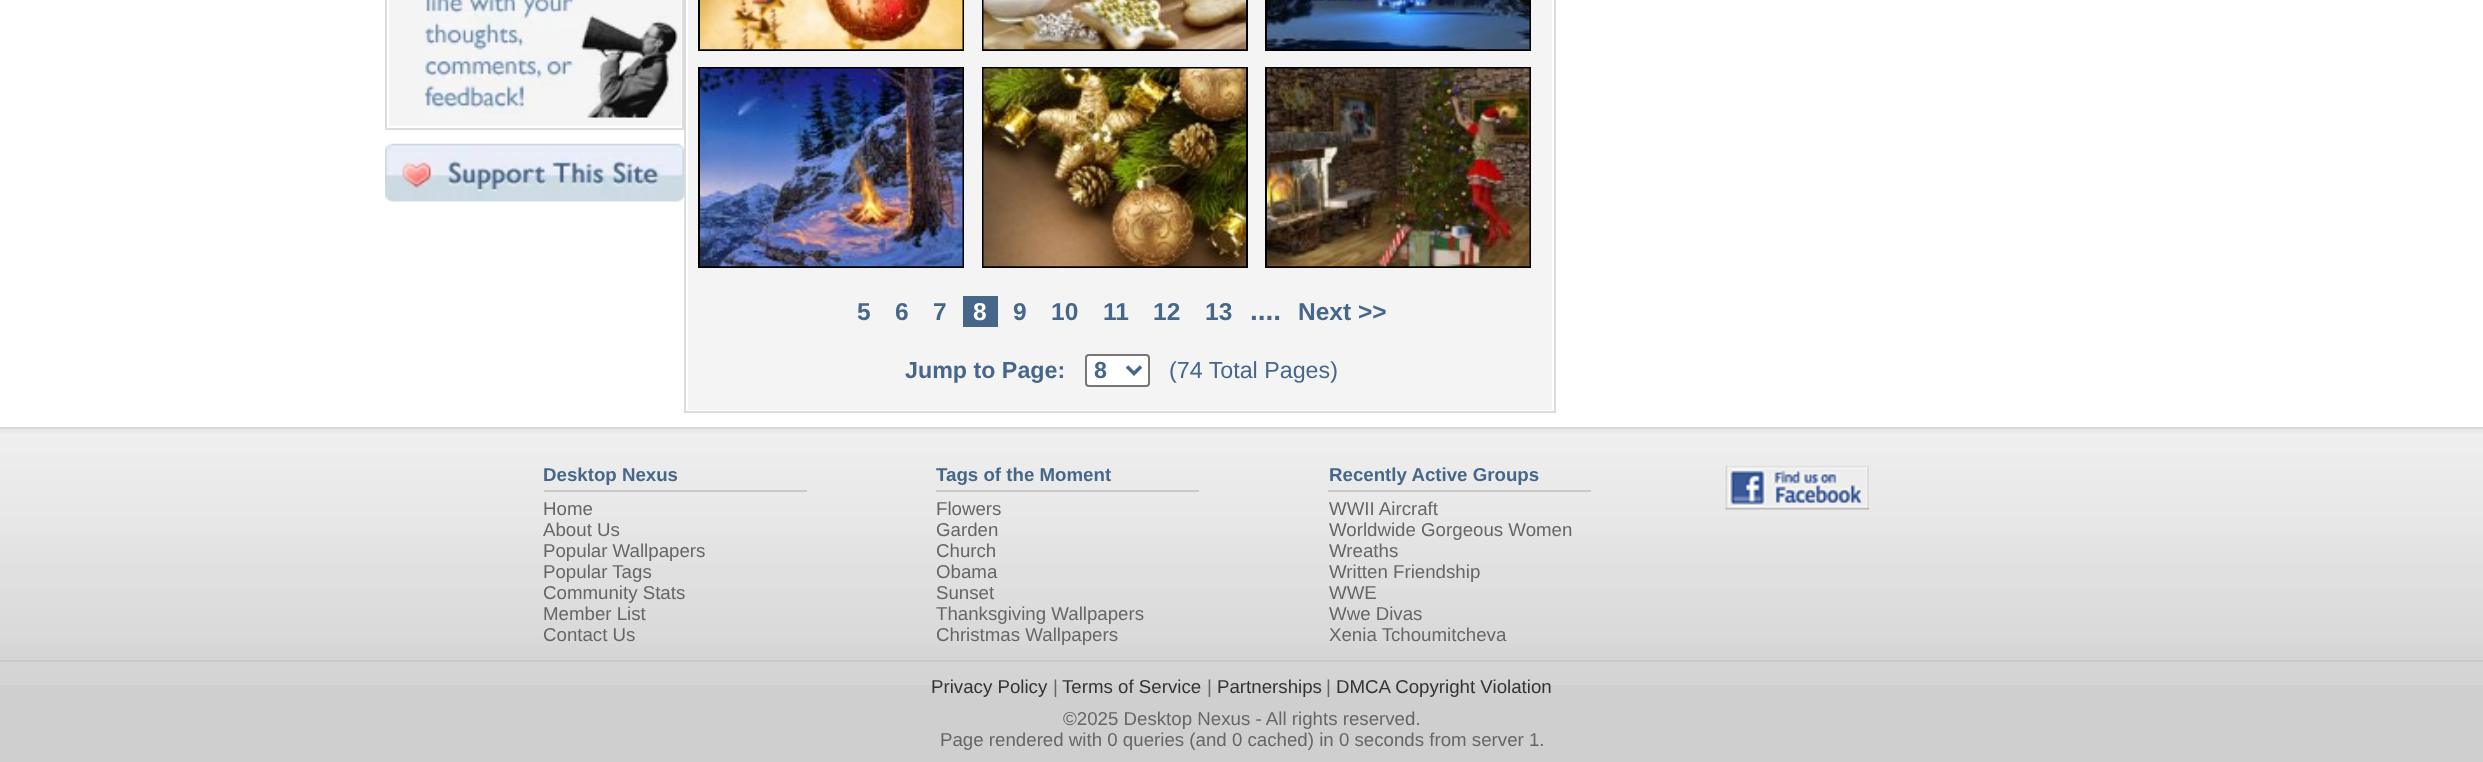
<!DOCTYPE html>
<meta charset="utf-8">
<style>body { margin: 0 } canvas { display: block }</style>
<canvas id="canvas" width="2483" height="762"></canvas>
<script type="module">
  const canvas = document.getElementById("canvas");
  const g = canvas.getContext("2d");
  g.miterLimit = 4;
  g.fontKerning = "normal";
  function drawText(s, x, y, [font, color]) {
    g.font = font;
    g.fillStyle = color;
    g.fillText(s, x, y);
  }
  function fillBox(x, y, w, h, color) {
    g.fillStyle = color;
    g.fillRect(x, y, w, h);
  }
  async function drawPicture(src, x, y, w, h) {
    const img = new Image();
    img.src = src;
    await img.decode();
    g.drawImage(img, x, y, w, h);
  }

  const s1 = ["bold 24.5px Liberation Sans", "#46678A"];
  const s2 = ["bold 24.5px Liberation Sans", "#FFFFFF"];
  const s3 = ["bold 28px Liberation Sans", "#46678A"];
  const s4 = ["bold 23.25px Liberation Sans", "#46678A"];
  const s5 = ["23.25px Liberation Sans", "#46678A"];
  const s6 = ["bold 18.7px Liberation Sans", "#46678A"];
  const s7 = ["18.7px Liberation Sans", "#666666"];
  const s8 = ["18.7px Liberation Sans", "#333333"];

  fillBox(0, 0, 2483, 762, "#FFFFFF");
  g.strokeStyle = "#DCDCDC";
  g.lineWidth = 2;
  g.strokeRect(386, -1, 297, 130);
  fillBox(389, 0, 292, 126, "#F4F4F4");
  await drawPicture("pic1.png", 424, 0, 254, 118);
  g.strokeRect(685, -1, 870, 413);
  await drawPicture("pic2.png", 385, 143, 300, 59);
  fillBox(688, 0, 864, 410, "#F4F4F4");
  g.strokeStyle = "#000000";
  g.strokeRect(699, -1, 264, 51);
  await drawPicture("pic3.png", 700, 0, 263, 50);
  g.strokeRect(983, -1, 264, 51);
  await drawPicture("pic4.png", 983, 0, 263, 50);
  g.strokeRect(1266, -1, 264, 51);
  await drawPicture("pic5.png", 1267, 0, 263, 50);
  g.strokeRect(699, 68, 264, 199);
  await drawPicture("pic6.png", 700, 68, 263, 199);
  g.strokeRect(983, 68, 264, 199);
  await drawPicture("pic7.png", 983, 68, 263, 199);
  g.strokeRect(1266, 68, 264, 199);
  await drawPicture("pic8.png", 1267, 68, 263, 199);
  drawText("5", 857, 320, s1);
  drawText("6", 895, 320, s1);
  drawText("7", 933, 320, s1);
  fillBox(963, 296, 35, 31, "#46678A");
  drawText("8", 973, 320, s2);
  drawText("9", 1013, 320, s1);
  drawText("10", 1051, 320, s1);
  drawText("11", 1103, 320, s1);
  drawText("12", 1153, 320, s1);
  drawText("13", 1205, 320, s1);
  drawText("....", 1250, 320, s3);
  drawText("Next >>", 1298, 320, s1);
  drawText("Jump to Page:", 905, 378, s4);
  g.fillStyle = "#FFFFFF";
  g.beginPath();
  g.roundRect(1086, 355, 63, 31, 3);
  g.fill();
  g.strokeStyle = "#767676";
  g.stroke();
  g.beginPath();
  g.moveTo(1127, 366.5);
  g.lineTo(1134, 373.5);
  g.lineTo(1141, 366.5);
  g.strokeStyle = "#46678A";
  g.lineWidth = 3.5;
  g.stroke();
  drawText("8", 1094, 378, s4);
  drawText("(74 Total Pages)", 1169, 378, s5);
  fillBox(0, 427, 2483, 335, "#CFCFCF");
  await drawPicture("pic9.png", 0, 427, 2483, 258);
  drawText("Desktop Nexus", 543, 481, s6);
  fillBox(544, 490, 263, 2, "#C9C9C9");
  drawText("Home", 543, 515, s7);
  drawText("About Us", 543, 536, s7);
  drawText("Popular Wallpapers", 543, 557, s7);
  drawText("Popular Tags", 543, 578, s7);
  drawText("Community Stats", 543, 599, s7);
  drawText("Member List", 543, 620, s7);
  drawText("Contact Us", 543, 641, s7);
  drawText("Tags of the Moment", 936, 481, s6);
  fillBox(936, 490, 263, 2, "#C9C9C9");
  drawText("Flowers", 936, 515, s7);
  drawText("Garden", 936, 536, s7);
  drawText("Church", 936, 557, s7);
  drawText("Obama", 936, 578, s7);
  drawText("Sunset", 936, 599, s7);
  drawText("Thanksgiving Wallpapers", 936, 620, s7);
  drawText("Christmas Wallpapers", 936, 641, s7);
  drawText("Recently Active Groups", 1329, 481, s6);
  fillBox(1328, 490, 263, 2, "#C9C9C9");
  drawText("WWII Aircraft", 1329, 515, s7);
  drawText("Worldwide Gorgeous Women", 1329, 536, s7);
  drawText("Wreaths", 1329, 557, s7);
  drawText("Written Friendship", 1329, 578, s7);
  drawText("WWE", 1329, 599, s7);
  drawText("Wwe Divas", 1329, 620, s7);
  drawText("Xenia Tchoumitcheva", 1329, 641, s7);
  await drawPicture("pic10.png", 1725, 465, 144, 45);
  fillBox(0, 660, 2483, 2, "#C9C9C9");
  drawText("Privacy Policy", 931, 693, s8);
  drawText("|", 1053, 693, s7);
  drawText("Terms of Service", 1062, 693, s8);
  drawText("|", 1207, 693, s7);
  drawText("Partnerships", 1217, 693, s8);
  drawText("|", 1326, 693, s7);
  drawText("DMCA Copyright Violation", 1336, 693, s8);
  drawText("©2025 Desktop Nexus - All rights reserved.", 1063, 725, s7);
  drawText("Page rendered with 0 queries (and 0 cached) in 0 seconds from server 1.", 940, 746, s7);
</script>
